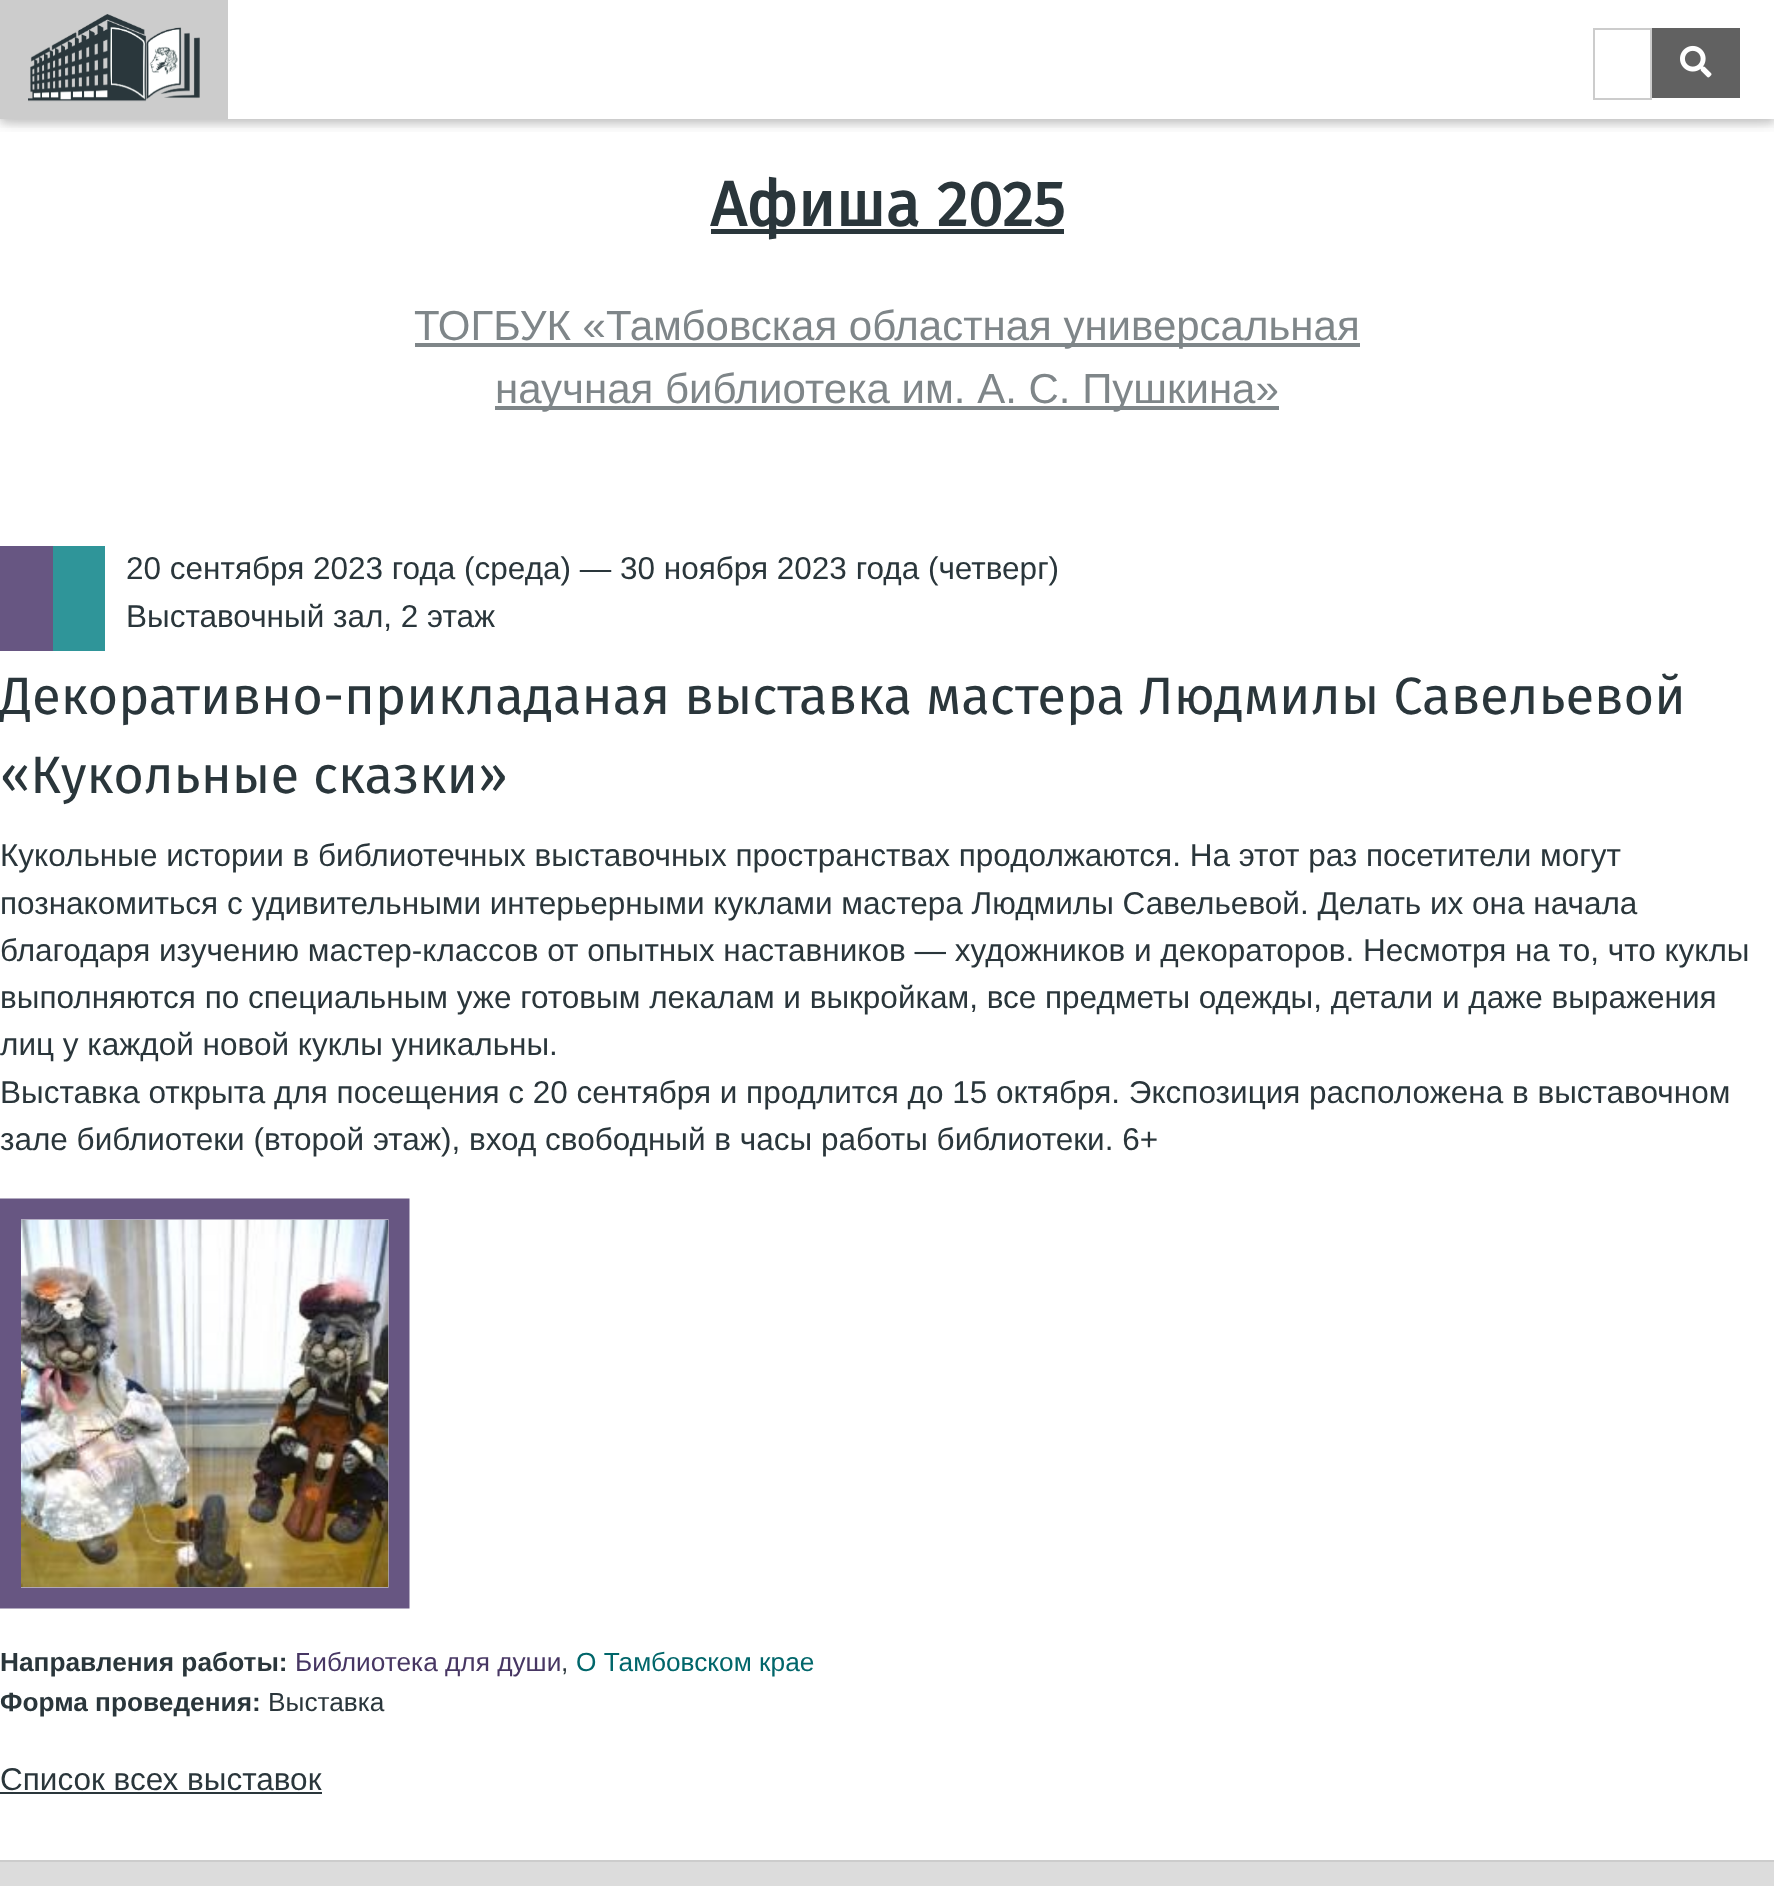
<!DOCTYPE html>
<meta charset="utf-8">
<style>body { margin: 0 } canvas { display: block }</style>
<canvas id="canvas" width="1774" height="1886"></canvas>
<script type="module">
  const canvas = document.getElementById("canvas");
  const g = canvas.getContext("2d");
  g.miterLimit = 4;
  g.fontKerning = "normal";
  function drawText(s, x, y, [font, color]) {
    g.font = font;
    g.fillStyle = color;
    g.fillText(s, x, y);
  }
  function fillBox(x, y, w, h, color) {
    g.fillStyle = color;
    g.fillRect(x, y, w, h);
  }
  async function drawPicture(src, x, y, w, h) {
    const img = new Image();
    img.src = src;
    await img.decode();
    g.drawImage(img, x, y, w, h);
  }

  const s1 = ["bold 63px Fira Sans", "#2A363B"];
  const s2 = ["42px Liberation Sans", "#7F8689"];
  const s3 = ["31.5px Liberation Sans", "#2A363B"];
  const s4 = ["52.5px Fira Sans", "#2A363B"];
  const s5 = ["bold 26.25px Liberation Sans", "#2A363B"];
  const s6 = ["26.25px Liberation Sans", "#473663"];
  const s7 = ["26.25px Liberation Sans", "#2A363B"];
  const s8 = ["26.25px Liberation Sans", "#00666A"];

  fillBox(0, 0, 1774, 1886, "#FFFFFF");
  g.save();
  g.beginPath();
  g.rect(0, 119, 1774, 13);
  g.clip();
  g.fillStyle = "rgba(0, 0, 0, 0.12)";
  g.filter = "blur(9px)";
  g.beginPath();
  g.rect(0, 4, 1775, 119);
  g.fill();
  g.filter = "none";
  g.restore();
  g.save();
  g.beginPath();
  g.rect(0, 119, 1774, 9);
  g.clip();
  g.fillStyle = "rgba(0, 0, 0, 0.16)";
  g.filter = "blur(4.5px)";
  g.beginPath();
  g.rect(0, 4, 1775, 119);
  g.fill();
  g.filter = "none";
  g.restore();
  fillBox(0, 0, 228, 119, "#CCCCCC");
  await drawPicture("pic1.png", 28, 14, 172, 88);
  g.strokeStyle = "#CCCCCC";
  g.lineWidth = 2;
  g.strokeRect(1594, 29, 57, 70);
  fillBox(1652, 28, 88, 70, "#616161");
  await drawPicture("pic2.png", 1680, 45, 32, 33);
  fillBox(711, 229, 353, 5, "#2A363B");
  drawText("Афиша 2025", 710, 226, s1);
  fillBox(415, 343, 945, 4, "#7F8689");
  drawText("ТОГБУК «Тамбовская областная универсальная", 414, 340, s2);
  fillBox(495, 406, 784, 4, "#7F8689");
  drawText("научная библиотека им. А. С. Пушкина»", 495, 403, s2);
  fillBox(0, 546, 53, 105, "#675682");
  fillBox(53, 546, 52, 105, "#2F9599");
  drawText("20 сентября 2023 года (среда) — 30 ноября 2023 года (четверг)", 126, 579, s3);
  drawText("Выставочный зал, 2 этаж", 126, 627, s3);
  drawText("Декоративно-прикладаная выставка мастера Людмилы Савельевой", 0, 714, s4);
  drawText("«Кукольные сказки»", 0, 793, s4);
  drawText("Кукольные истории в библиотечных выставочных пространствах продолжаются. На этот раз посетители могут", 0, 866, s3);
  drawText("познакомиться с удивительными интерьерными куклами мастера Людмилы Савельевой. Делать их она начала", 0, 914, s3);
  drawText("благодаря изучению мастер-классов от опытных наставников — художников и декораторов. Несмотря на то, что куклы", 0, 961, s3);
  drawText("выполняются по специальным уже готовым лекалам и выкройкам, все предметы одежды, детали и даже выражения", 0, 1008, s3);
  drawText("лиц у каждой новой куклы уникальны.", 0, 1055, s3);
  drawText("Выставка открыта для посещения с 20 сентября и продлится до 15 октября. Экспозиция расположена в выставочном", 0, 1103, s3);
  drawText("зале библиотеки (второй этаж), вход свободный в часы работы библиотеки. 6+", 0, 1150, s3);
  g.beginPath();
  g.moveTo(10.5, 1209);
  g.lineTo(399, 1209);
  g.lineTo(399, 1598);
  g.lineTo(10.5, 1598);
  g.closePath();
  g.strokeStyle = "#675682";
  g.lineWidth = 21;
  g.stroke();
  await drawPicture("pic3.png", 21, 1219, 368, 369);
  drawText("Направления работы:", 0, 1671, s5);
  drawText("Библиотека для души", 295, 1671, s6);
  drawText(",", 561, 1671, s7);
  drawText("О Тамбовском крае", 576, 1671, s8);
  drawText("Форма проведения:", 0, 1711, s5);
  drawText("Выставка", 268, 1711, s7);
  drawText("Список всех выставок", 0, 1790, s3);
  fillBox(0, 1792, 322, 2, "#2A363B");
  fillBox(0, 1862, 1774, 24, "#DCDCDC");
  fillBox(0, 1860, 1774, 2, "#CCCCCC");
</script>
